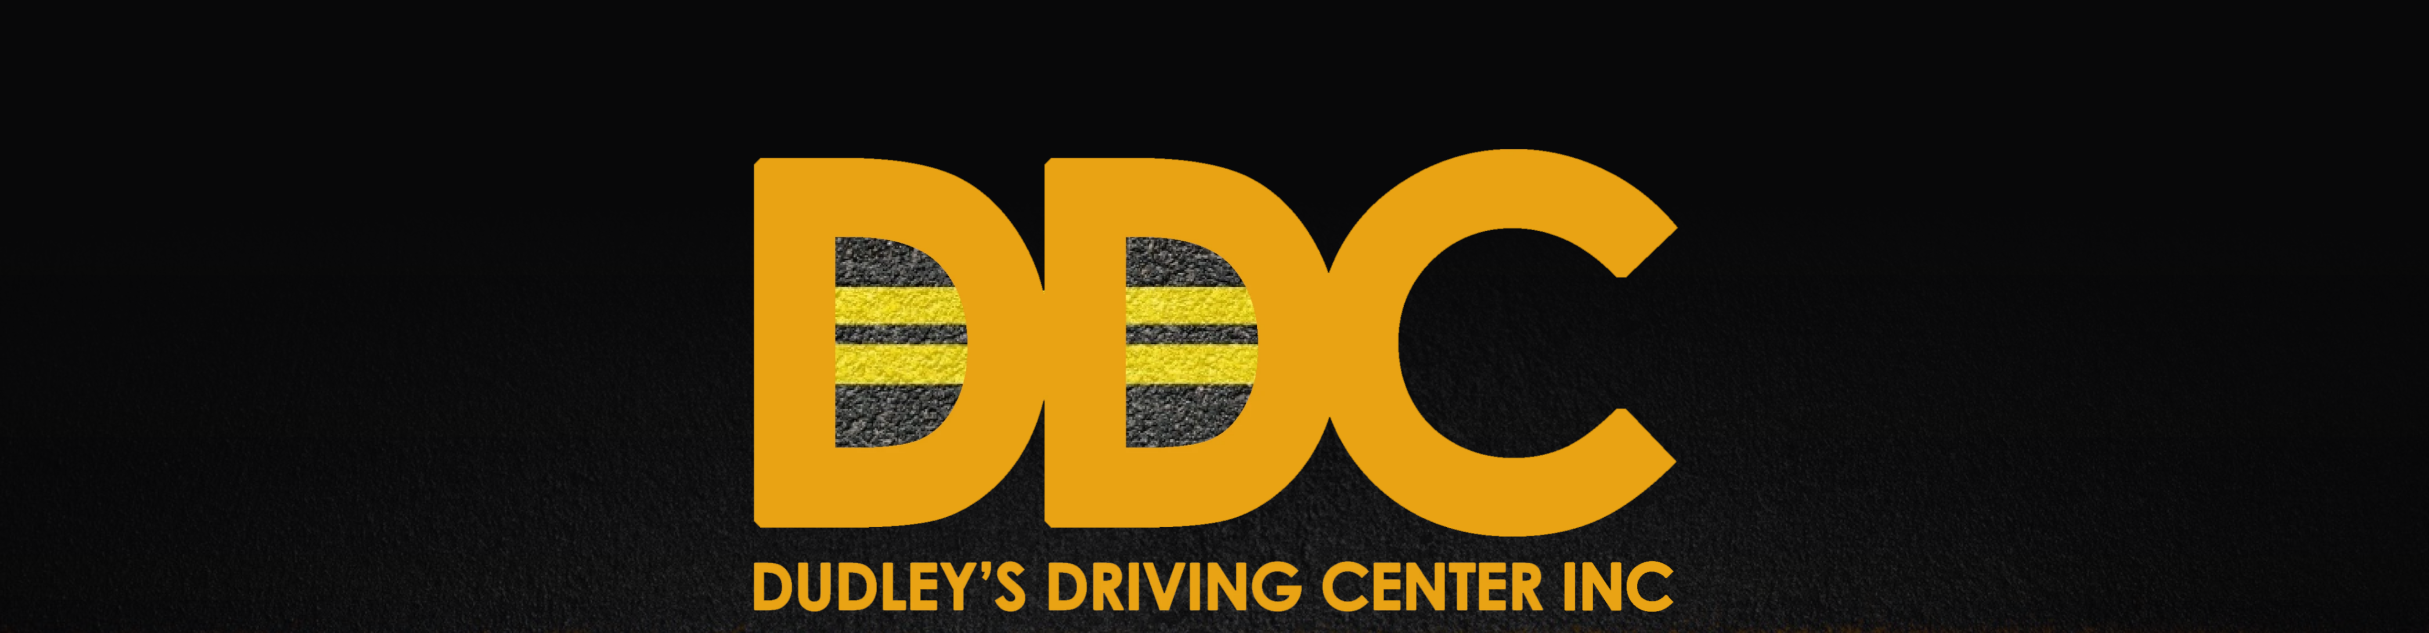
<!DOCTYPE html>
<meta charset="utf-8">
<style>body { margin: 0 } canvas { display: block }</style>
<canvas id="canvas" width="2429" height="633"></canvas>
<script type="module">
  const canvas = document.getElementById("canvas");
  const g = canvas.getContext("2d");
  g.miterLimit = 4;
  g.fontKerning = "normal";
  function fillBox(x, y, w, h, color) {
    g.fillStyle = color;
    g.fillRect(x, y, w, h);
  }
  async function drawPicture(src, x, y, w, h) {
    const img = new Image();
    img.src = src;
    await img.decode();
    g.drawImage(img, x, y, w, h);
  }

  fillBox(0, 0, 2429, 633, "#FFFFFF");
  await drawPicture("pic1.png", 0, 0, 2429, 633);
  await drawPicture("pic2.png", 753, 148, 926, 464);
</script>
